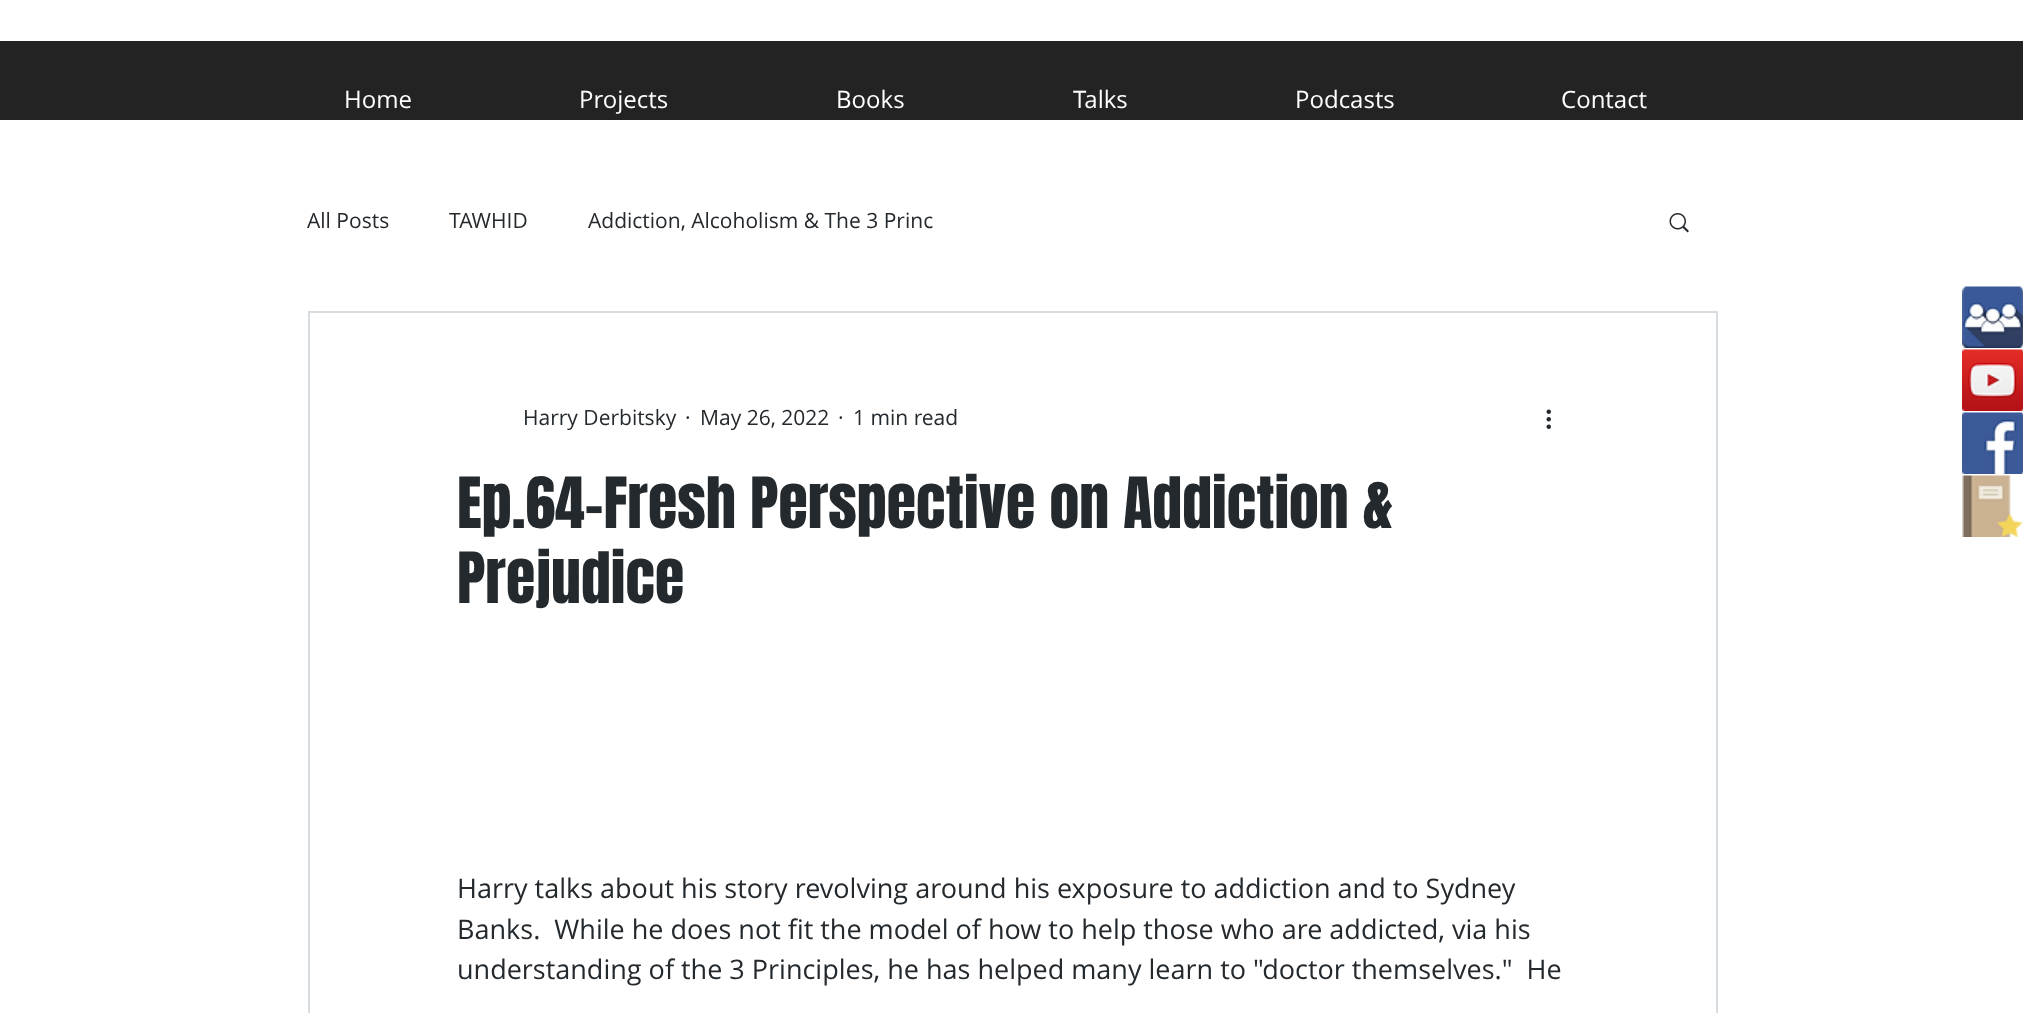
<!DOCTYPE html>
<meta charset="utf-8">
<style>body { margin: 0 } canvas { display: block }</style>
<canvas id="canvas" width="2023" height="1013"></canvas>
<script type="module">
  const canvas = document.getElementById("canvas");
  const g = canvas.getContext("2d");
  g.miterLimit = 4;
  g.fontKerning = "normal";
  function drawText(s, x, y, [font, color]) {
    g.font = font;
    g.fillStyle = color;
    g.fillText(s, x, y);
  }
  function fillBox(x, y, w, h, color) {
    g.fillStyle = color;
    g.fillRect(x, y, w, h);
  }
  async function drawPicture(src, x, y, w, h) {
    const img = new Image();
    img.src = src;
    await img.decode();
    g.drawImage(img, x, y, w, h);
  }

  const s1 = ["24px Open Sans", "#FFFFFF"];
  const s2 = ["21px Open Sans", "#24292D"];
  const s3 = ["60px Anton", "#24292D"];
  const s4 = ["27px Open Sans", "#24292D"];

  fillBox(0, 0, 2023, 1013, "#FFFFFF");
  fillBox(0, 41, 2023, 79, "#242323");
  drawText("Home", 344, 108, s1);
  drawText("Projects", 579, 108, s1);
  drawText("Books", 836, 108, s1);
  drawText("Talks", 1073, 108, s1);
  drawText("Podcasts", 1295, 108, s1);
  drawText("Contact", 1561, 108, s1);
  drawText("All Posts", 307, 228, s2);
  drawText("TAWHID", 449, 228, s2);
  drawText("Addiction, Alcoholism & The 3 Princ", 588, 228, s2);
  await drawPicture("pic1.png", 1669, 213, 20, 20);
  g.strokeStyle = "#D7DCE1";
  g.lineWidth = 2;
  g.strokeRect(309, 312, 1408, 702);
  drawText("Harry Derbitsky", 523, 425, s2);
  drawText("·", 685, 425, s2);
  drawText("May 26, 2022", 700, 425, s2);
  drawText("·", 838, 425, s2);
  drawText("1 min read", 853, 425, s2);
  await drawPicture("pic2.png", 1546, 409, 5, 20);
  drawText("Ep.64-Fresh Perspective on Addiction &", 457, 528, s3);
  drawText("Prejudice", 457, 603, s3);
  drawText("Harry talks about his story revolving around his exposure to addiction and to Sydney", 457, 898, s4);
  drawText("Banks.  While he does not fit the model of how to help those who are addicted, via his", 457, 939, s4);
  drawText("understanding of the 3 Principles, he has helped many learn to \"doctor themselves.\"  He", 457, 979, s4);
  await drawPicture("pic3.png", 1962, 286, 61, 62);
  await drawPicture("pic4.png", 1962, 349, 61, 62);
  await drawPicture("pic5.png", 1962, 412, 61, 62);
  await drawPicture("pic6.png", 1962, 475, 61, 62);
</script>
